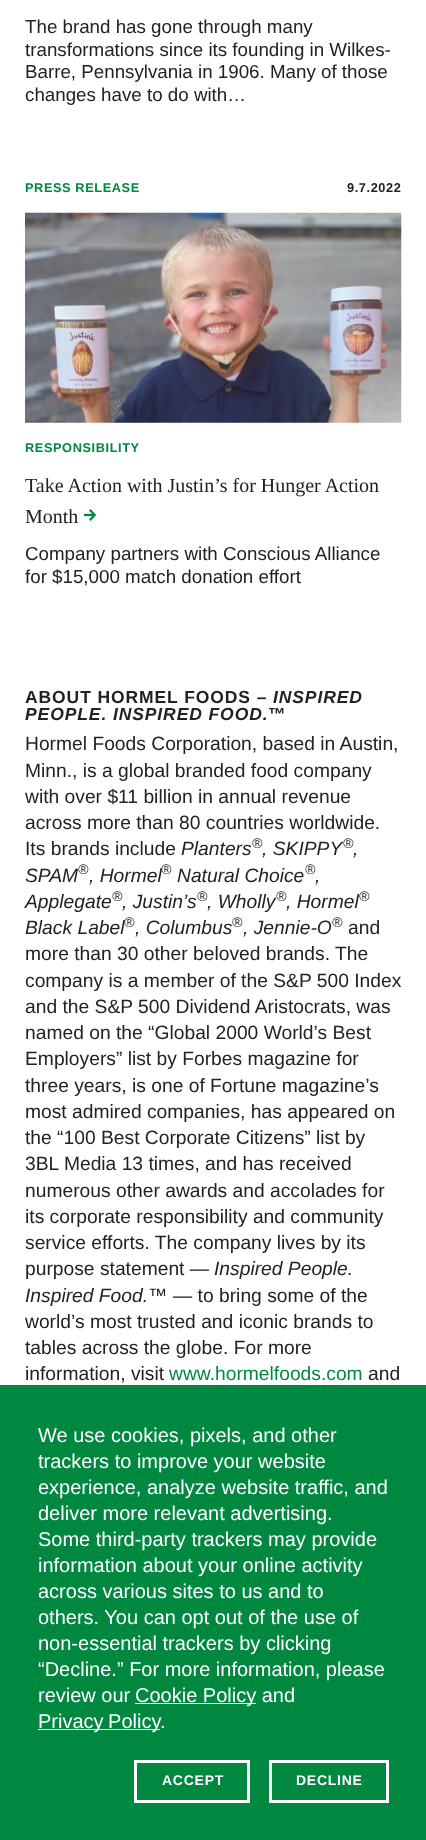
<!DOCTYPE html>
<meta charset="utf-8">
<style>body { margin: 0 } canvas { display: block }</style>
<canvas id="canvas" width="426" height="1840"></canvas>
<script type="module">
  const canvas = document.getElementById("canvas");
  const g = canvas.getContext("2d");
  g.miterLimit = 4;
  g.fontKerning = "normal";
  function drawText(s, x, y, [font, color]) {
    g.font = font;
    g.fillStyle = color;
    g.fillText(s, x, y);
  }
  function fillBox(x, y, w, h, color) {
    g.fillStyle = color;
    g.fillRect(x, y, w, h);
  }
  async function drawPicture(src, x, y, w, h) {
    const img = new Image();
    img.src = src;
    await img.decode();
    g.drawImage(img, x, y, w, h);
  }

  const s1 = ["18.75px Liberation Sans", "#222222"];
  const s2 = ["bold 12.75px Liberation Sans", "#008841"];
  const s3 = ["bold 12.75px Liberation Sans", "#222222"];
  const s4 = ["20px Liberation Serif", "#222222"];
  const s5 = ["bold 17.5px Liberation Sans", "#222222"];
  const s6 = ["italic bold 17.5px Liberation Sans", "#222222"];
  const s7 = ["19.25px Liberation Sans", "#222222"];
  const s8 = ["italic 19.25px Liberation Sans", "#222222"];
  const s9 = ["italic 14px Liberation Sans", "#222222"];
  const s10 = ["19.25px Liberation Sans", "#008841"];
  const s11 = ["20px Liberation Sans", "#FFFFFF"];
  const s12 = ["bold 14px Liberation Sans", "#FFFFFF"];

  fillBox(0, 0, 426, 1840, "#FFFFFF");
  drawText("The brand has gone through many", 25, 33, s1);
  drawText("transformations since its founding in Wilkes-", 25, 56, s1);
  drawText("Barre, Pennsylvania in 1906. Many of those", 25, 78, s1);
  drawText("changes have to do with…", 25, 101, s1);
  g.letterSpacing = "0.6px";
  drawText("PRESS RELEASE", 25, 192, s2);
  drawText("9.7.2022", 347, 192, s3);
  await drawPicture("pic1.png", 25, 212, 377, 211);
  drawText("RESPONSIBILITY", 25, 452, s2);
  g.letterSpacing = "0px";
  drawText("Take Action with Justin’s for Hunger Action", 25, 492, s4);
  drawText("Month", 25, 523, s4);
  await drawPicture("pic2.png", 84, 509, 12, 12);
  drawText("Company partners with Conscious Alliance", 25, 560, s1);
  drawText("for $15,000 match donation effort", 25, 583, s1);
  g.letterSpacing = "0.9px";
  drawText("ABOUT HORMEL FOODS –", 25, 703, s5);
  drawText("INSPIRED", 273, 703, s6);
  drawText("PEOPLE. INSPIRED FOOD.", 25, 720, s6);
  drawText("™", 268, 720, s5);
  g.letterSpacing = "0px";
  drawText("Hormel Foods Corporation, based in Austin,", 25, 750, s7);
  drawText("Minn., is a global branded food company", 25, 777, s7);
  drawText("with over $11 billion in annual revenue", 25, 803, s7);
  drawText("across more than 80 countries worldwide.", 25, 829, s7);
  drawText("Its brands include", 25, 855, s7);
  drawText("Planters", 181, 855, s8);
  drawText(", SKIPPY", 262, 855, s8);
  drawText("®", 252, 848, s9);
  drawText("®", 343, 848, s9);
  drawText(",", 353, 855, s8);
  drawText("SPAM", 25, 882, s8);
  drawText("®", 78, 874, s9);
  drawText(", Hormel", 89, 882, s8);
  drawText("®", 161, 874, s9);
  drawText("Natural Choice", 177, 882, s8);
  drawText("®", 305, 874, s9);
  drawText(",", 315, 882, s8);
  drawText("Applegate", 25, 908, s8);
  drawText(", Justin’s", 122, 908, s8);
  drawText("®", 112, 901, s9);
  drawText(", Wholly", 207, 908, s8);
  drawText("®", 197, 901, s9);
  drawText(", Hormel", 286, 908, s8);
  drawText("®", 276, 901, s9);
  drawText("®", 359, 901, s9);
  drawText("Black Label", 25, 934, s8);
  drawText(", Columbus", 135, 934, s8);
  drawText("®", 124, 927, s9);
  drawText(", Jennie-O", 243, 934, s8);
  drawText("®", 232, 927, s9);
  drawText("®", 332, 927, s9);
  drawText("and", 348, 934, s7);
  drawText("more than 30 other beloved brands. The", 25, 960, s7);
  drawText("company is a member of the S&P 500 Index", 25, 987, s7);
  drawText("and the S&P 500 Dividend Aristocrats, was", 25, 1013, s7);
  drawText("named on the “Global 2000 World’s Best", 25, 1039, s7);
  drawText("Employers” list by Forbes magazine for", 25, 1065, s7);
  drawText("three years, is one of Fortune magazine’s", 25, 1092, s7);
  drawText("most admired companies, has appeared on", 25, 1118, s7);
  drawText("the “100 Best Corporate Citizens” list by", 25, 1144, s7);
  drawText("3BL Media 13 times, and has received", 25, 1170, s7);
  drawText("numerous other awards and accolades for", 25, 1197, s7);
  drawText("its corporate responsibility and community", 25, 1223, s7);
  drawText("service efforts. The company lives by its", 25, 1249, s7);
  drawText("purpose statement —", 25, 1275, s7);
  drawText("Inspired People.", 214, 1275, s8);
  drawText("Inspired Food.™", 25, 1302, s8);
  drawText("— to bring some of the", 173, 1302, s7);
  drawText("world’s most trusted and iconic brands to", 25, 1328, s7);
  drawText("tables across the globe. For more", 25, 1354, s7);
  drawText("information, visit", 25, 1380, s7);
  drawText("www.hormelfoods.com", 169, 1380, s10);
  drawText("and", 368, 1380, s7);
  fillBox(0, 1385, 426, 455, "#008841");
  drawText("We use cookies, pixels, and other", 38, 1442, s11);
  drawText("trackers to improve your website", 38, 1468, s11);
  drawText("experience, analyze website traffic, and", 38, 1494, s11);
  drawText("deliver more relevant advertising.", 38, 1520, s11);
  drawText("Some third-party trackers may provide", 38, 1546, s11);
  drawText("information about your online activity", 38, 1572, s11);
  drawText("across various sites to us and to", 38, 1598, s11);
  drawText("others. You can opt out of the use of", 38, 1624, s11);
  drawText("non-essential trackers by clicking", 38, 1650, s11);
  drawText("“Decline.” For more information, please", 38, 1676, s11);
  drawText("review our", 38, 1702, s11);
  fillBox(135, 1703, 121, 1, "#FFFFFF");
  drawText("Cookie Policy and", 135, 1702, s11);
  fillBox(38, 1729, 122, 1, "#FFFFFF");
  g.wordSpacing = "-1px";
  drawText("Privacy Policy", 38, 1728, s11);
  g.wordSpacing = "0px";
  drawText(".", 160, 1728, s11);
  g.strokeStyle = "#FFFFFF";
  g.lineWidth = 3;
  g.strokeRect(135.5, 1761.5, 113, 40);
  g.letterSpacing = "0.75px";
  drawText("ACCEPT", 162, 1785, s12);
  g.strokeRect(270.5, 1761.5, 117, 40);
  drawText("DECLINE", 296, 1785, s12);
</script>
